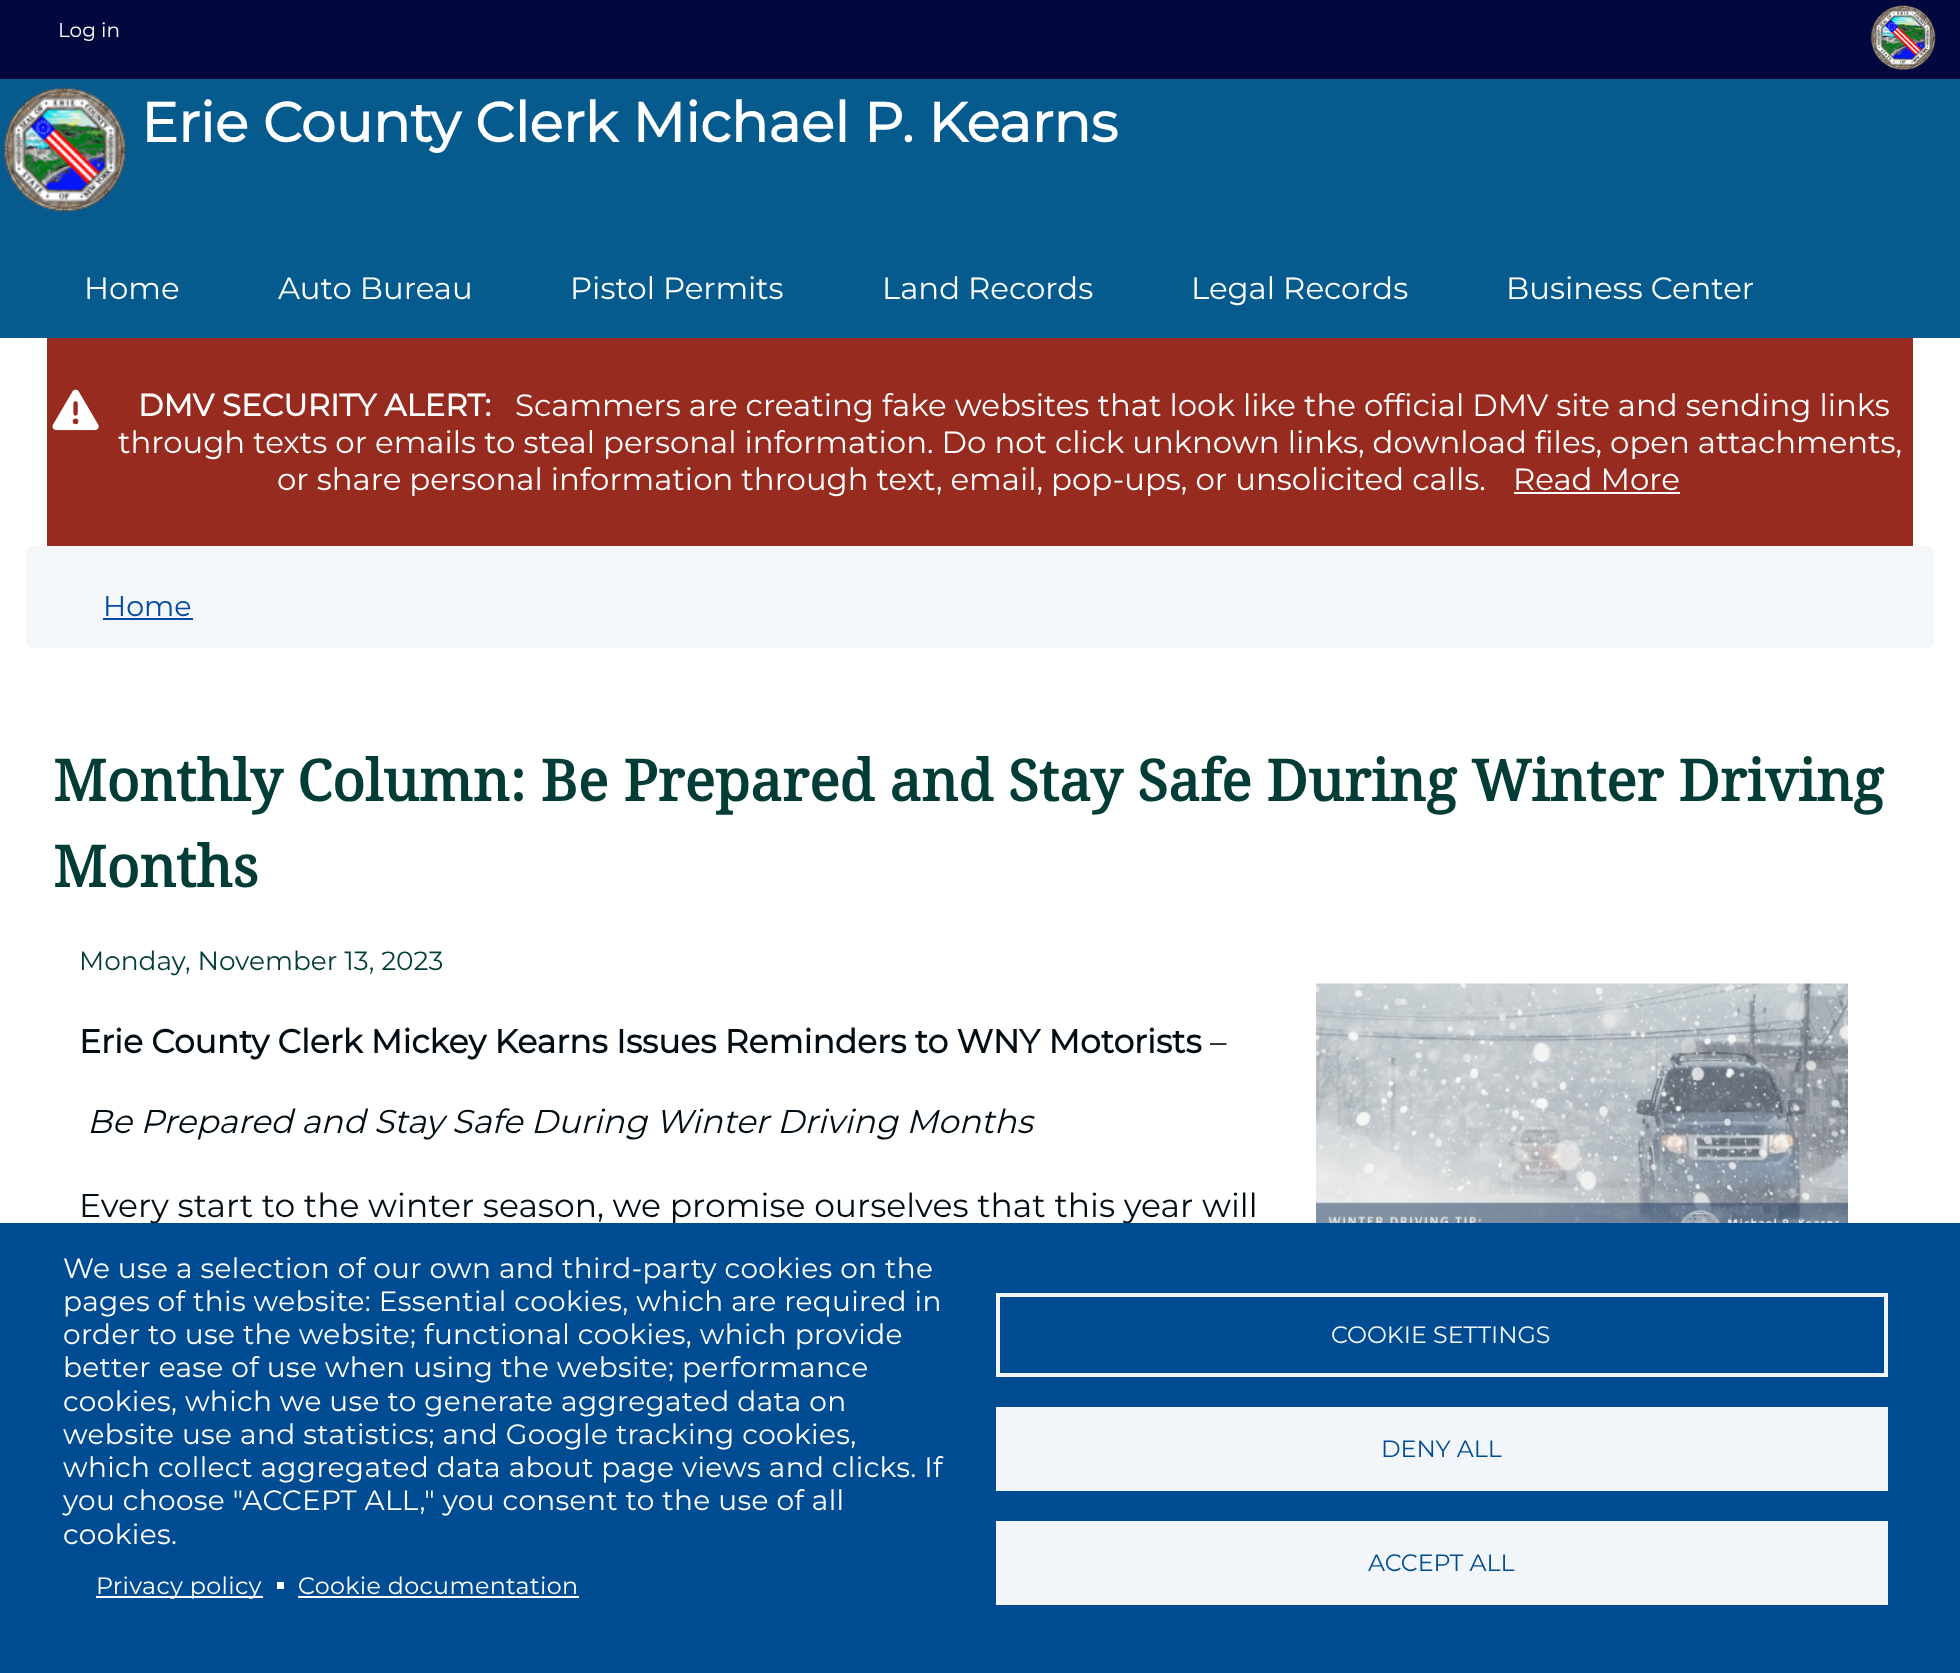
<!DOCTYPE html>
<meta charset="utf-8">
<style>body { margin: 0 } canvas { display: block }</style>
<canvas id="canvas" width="1960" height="1673"></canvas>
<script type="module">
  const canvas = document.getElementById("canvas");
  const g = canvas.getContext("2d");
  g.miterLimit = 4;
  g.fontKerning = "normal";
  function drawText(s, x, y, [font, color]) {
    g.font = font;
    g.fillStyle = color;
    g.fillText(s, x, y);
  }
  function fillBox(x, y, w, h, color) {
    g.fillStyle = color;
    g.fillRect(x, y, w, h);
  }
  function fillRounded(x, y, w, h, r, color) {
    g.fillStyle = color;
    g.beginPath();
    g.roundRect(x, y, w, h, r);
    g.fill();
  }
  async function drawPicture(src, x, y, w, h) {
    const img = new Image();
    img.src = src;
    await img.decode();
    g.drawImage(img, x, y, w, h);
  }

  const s1 = ["100 20px Montserrat", "#FFFFFF"];
  const s2 = ["bold 55.4px Montserrat", "#FFFFFF"];
  const s3 = ["100 30.8px Montserrat", "#FFFFFF"];
  const s4 = ["bold 30.8px Montserrat", "#FFFFFF"];
  const s5 = ["100 28.5px Montserrat", "#014AA2"];
  const s6 = ["bold 57px Noto Serif", "#013D36"];
  const s7 = ["100 26.4px Montserrat", "#013D36"];
  const s8 = ["bold 33px Montserrat", "#010C13"];
  const s9 = ["100 33px Montserrat", "#010C13"];
  const s10 = ["italic 100 33px Montserrat", "#010C13"];
  const s11 = ["100 28px Montserrat", "#FFFFFF"];
  const s12 = ["100 23.75px Montserrat", "#FFFFFF"];
  const s13 = ["100 23.75px Montserrat", "#F2F6FA"];
  const s14 = ["100 23.75px Montserrat", "#004C93"];

  fillBox(0, 0, 1960, 1673, "#FFFFFF");
  fillBox(0, 0, 1960, 79, "#01083D");
  drawText("Log in", 58, 37, s1);
  await drawPicture("pic1.png", 1870, 5, 66, 65);
  fillBox(0, 79, 1960, 259, "#055A8E");
  await drawPicture("pic2.png", 3, 87, 123, 125);
  drawText("Erie County Clerk Michael P. Kearns", 141, 142, s2);
  drawText("Home", 84, 299, s3);
  drawText("Auto Bureau", 278, 299, s3);
  drawText("Pistol Permits", 570, 299, s3);
  drawText("Land Records", 882, 299, s3);
  drawText("Legal Records", 1191, 299, s3);
  drawText("Business Center", 1506, 299, s3);
  fillBox(47, 338, 1866, 208, "#982B1F");
  await drawPicture("pic3.png", 52, 389, 47, 42);
  drawText("DMV SECURITY ALERT:", 138, 416, s4);
  drawText("Scammers are creating fake websites that look like the official DMV site and sending links", 515, 416, s3);
  drawText("through texts or emails to steal personal information. Do not click unknown links, download files, open attachments,", 118, 453, s3);
  drawText("or share personal information through text, email, pop-ups, or unsolicited calls.", 277, 490, s3);
  drawText("Read More", 1513, 490, s3);
  fillBox(1514, 492, 166, 2, "#FFFFFF");
  fillRounded(26, 546, 1908, 102, 7, "#F3F7FA");
  drawText("Home", 103, 616, s5);
  fillBox(103, 618, 90, 2, "#014AA2");
  drawText("Monthly Column: Be Prepared and Stay Safe During Winter Driving", 53, 801, s6);
  drawText("Months", 53, 887, s6);
  drawText("Monday, November 13, 2023", 79, 970, s7);
  g.wordSpacing = "-0.25px";
  drawText("Erie County Clerk Mickey Kearns Issues Reminders to WNY Motorists", 79, 1053, s8);
  g.wordSpacing = "0px";
  drawText("–", 1210, 1053, s9);
  g.wordSpacing = "-0.25px";
  drawText("Be Prepared and Stay Safe During Winter Driving Months", 87, 1133, s10);
  g.wordSpacing = "0px";
  drawText("Every start to the winter season, we promise ourselves that this year will", 79, 1217, s9);
  await drawPicture("pic4.png", 1316, 983, 532, 240);
  fillBox(0, 1223, 1960, 450, "#004C93");
  g.letterSpacing = "0.35px";
  drawText("We use a selection of our own and third-party cookies on the", 63, 1278, s11);
  drawText("pages of this website: Essential cookies, which are required in", 63, 1311, s11);
  drawText("order to use the website; functional cookies, which provide", 63, 1344, s11);
  drawText("better ease of use when using the website; performance", 63, 1377, s11);
  drawText("cookies, which we use to generate aggregated data on", 63, 1411, s11);
  drawText("website use and statistics; and Google tracking cookies,", 63, 1444, s11);
  drawText("which collect aggregated data about page views and clicks. If", 63, 1477, s11);
  drawText("you choose \"ACCEPT ALL,\" you consent to the use of all", 63, 1510, s11);
  drawText("cookies.", 63, 1544, s11);
  fillBox(96, 1596, 167, 2, "#FFFFFF");
  drawText("Privacy policy", 96, 1594, s12);
  fillBox(277, 1582, 7, 7, "#FFFFFF");
  drawText("Cookie documentation", 298, 1594, s12);
  fillBox(298, 1596, 281, 2, "#FFFFFF");
  g.strokeStyle = "#F2F6FA";
  g.lineWidth = 4;
  g.strokeRect(998, 1295, 888, 80);
  g.letterSpacing = "0px";
  drawText("COOKIE SETTINGS", 1331, 1343, s13);
  fillBox(996, 1407, 892, 84, "#F2F6FA");
  drawText("DENY ALL", 1381, 1457, s14);
  fillBox(996, 1521, 892, 84, "#F2F6FA");
  drawText("ACCEPT ALL", 1368, 1571, s14);
</script>
